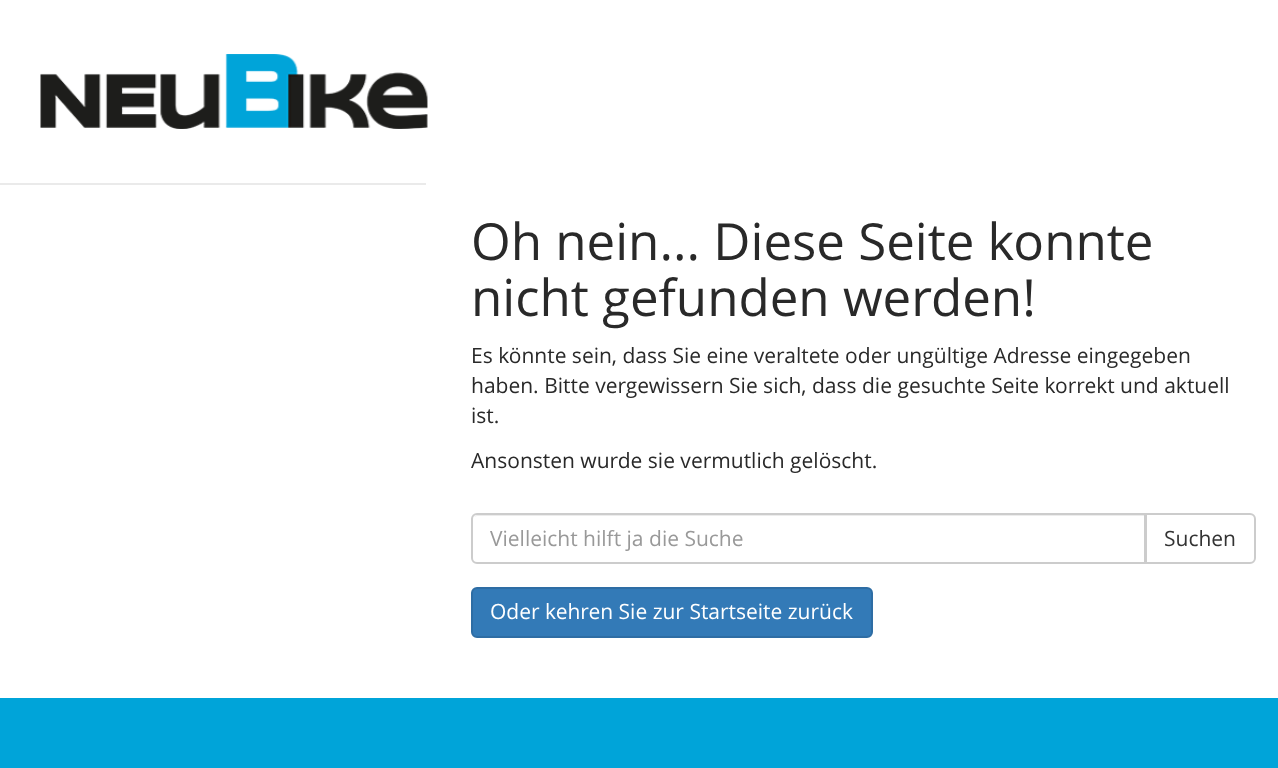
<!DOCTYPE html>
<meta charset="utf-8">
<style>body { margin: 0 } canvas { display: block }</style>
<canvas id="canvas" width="1278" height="768"></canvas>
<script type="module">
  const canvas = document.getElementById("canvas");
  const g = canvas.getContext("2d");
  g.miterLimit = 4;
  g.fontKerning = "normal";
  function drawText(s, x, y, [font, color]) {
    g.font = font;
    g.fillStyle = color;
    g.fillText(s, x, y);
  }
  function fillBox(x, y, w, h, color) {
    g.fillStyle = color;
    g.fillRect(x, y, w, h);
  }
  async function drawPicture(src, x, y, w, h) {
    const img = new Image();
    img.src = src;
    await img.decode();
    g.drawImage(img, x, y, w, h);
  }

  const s1 = ["51px Open Sans", "#292929"];
  const s2 = ["21px Open Sans", "#292929"];
  const s3 = ["21px Open Sans", "#999999"];
  const s4 = ["21px Open Sans", "#333333"];
  const s5 = ["21px Open Sans", "#FFFFFF"];

  fillBox(0, 0, 1278, 768, "#FFFFFF");
  await drawPicture("pic1.png", 40, 54, 388, 75);
  fillBox(0, 183, 426, 2, "#EAEAEA");
  drawText("Oh nein... Diese Seite konnte", 471, 260, s1);
  drawText("nicht gefunden werden!", 471, 316, s1);
  drawText("Es könnte sein, dass Sie eine veraltete oder ungültige Adresse eingegeben", 471, 363, s2);
  drawText("haben. Bitte vergewissern Sie sich, dass die gesuchte Seite korrekt und aktuell", 471, 393, s2);
  drawText("ist.", 471, 423, s2);
  drawText("Ansonsten wurde sie vermutlich gelöscht.", 471, 468, s2);
  g.fillStyle = "#ECECEC";
  g.beginPath();
  g.moveTo(477, 516);
  g.lineTo(1144, 516);
  g.lineTo(1144, 563);
  g.lineTo(1145, 563);
  g.lineTo(1145, 515);
  g.lineTo(478, 515);
  g.bezierCurveTo(476, 515, 475, 516, 474, 517);
  g.closePath();
  g.fill();
  g.beginPath();
  g.roundRect(472, 514, 673, 49, [5, 0, 0, 5]);
  g.strokeStyle = "#CCCCCC";
  g.lineWidth = 2;
  g.stroke();
  drawText("Vielleicht hilft ja die Suche", 490, 546, s3);
  g.fillStyle = "#FFFFFF";
  g.beginPath();
  g.roundRect(1146, 514, 109, 49, [0, 5, 5, 0]);
  g.fill();
  g.stroke();
  drawText("Suchen", 1164, 546, s4);
  g.fillStyle = "#337AB7";
  g.beginPath();
  g.roundRect(472, 588, 400, 49, 5);
  g.fill();
  g.strokeStyle = "#2E6DA4";
  g.stroke();
  drawText("Oder kehren Sie zur Startseite zurück", 490, 619, s5);
  fillBox(0, 698, 1278, 70, "#00A4D9");
</script>
